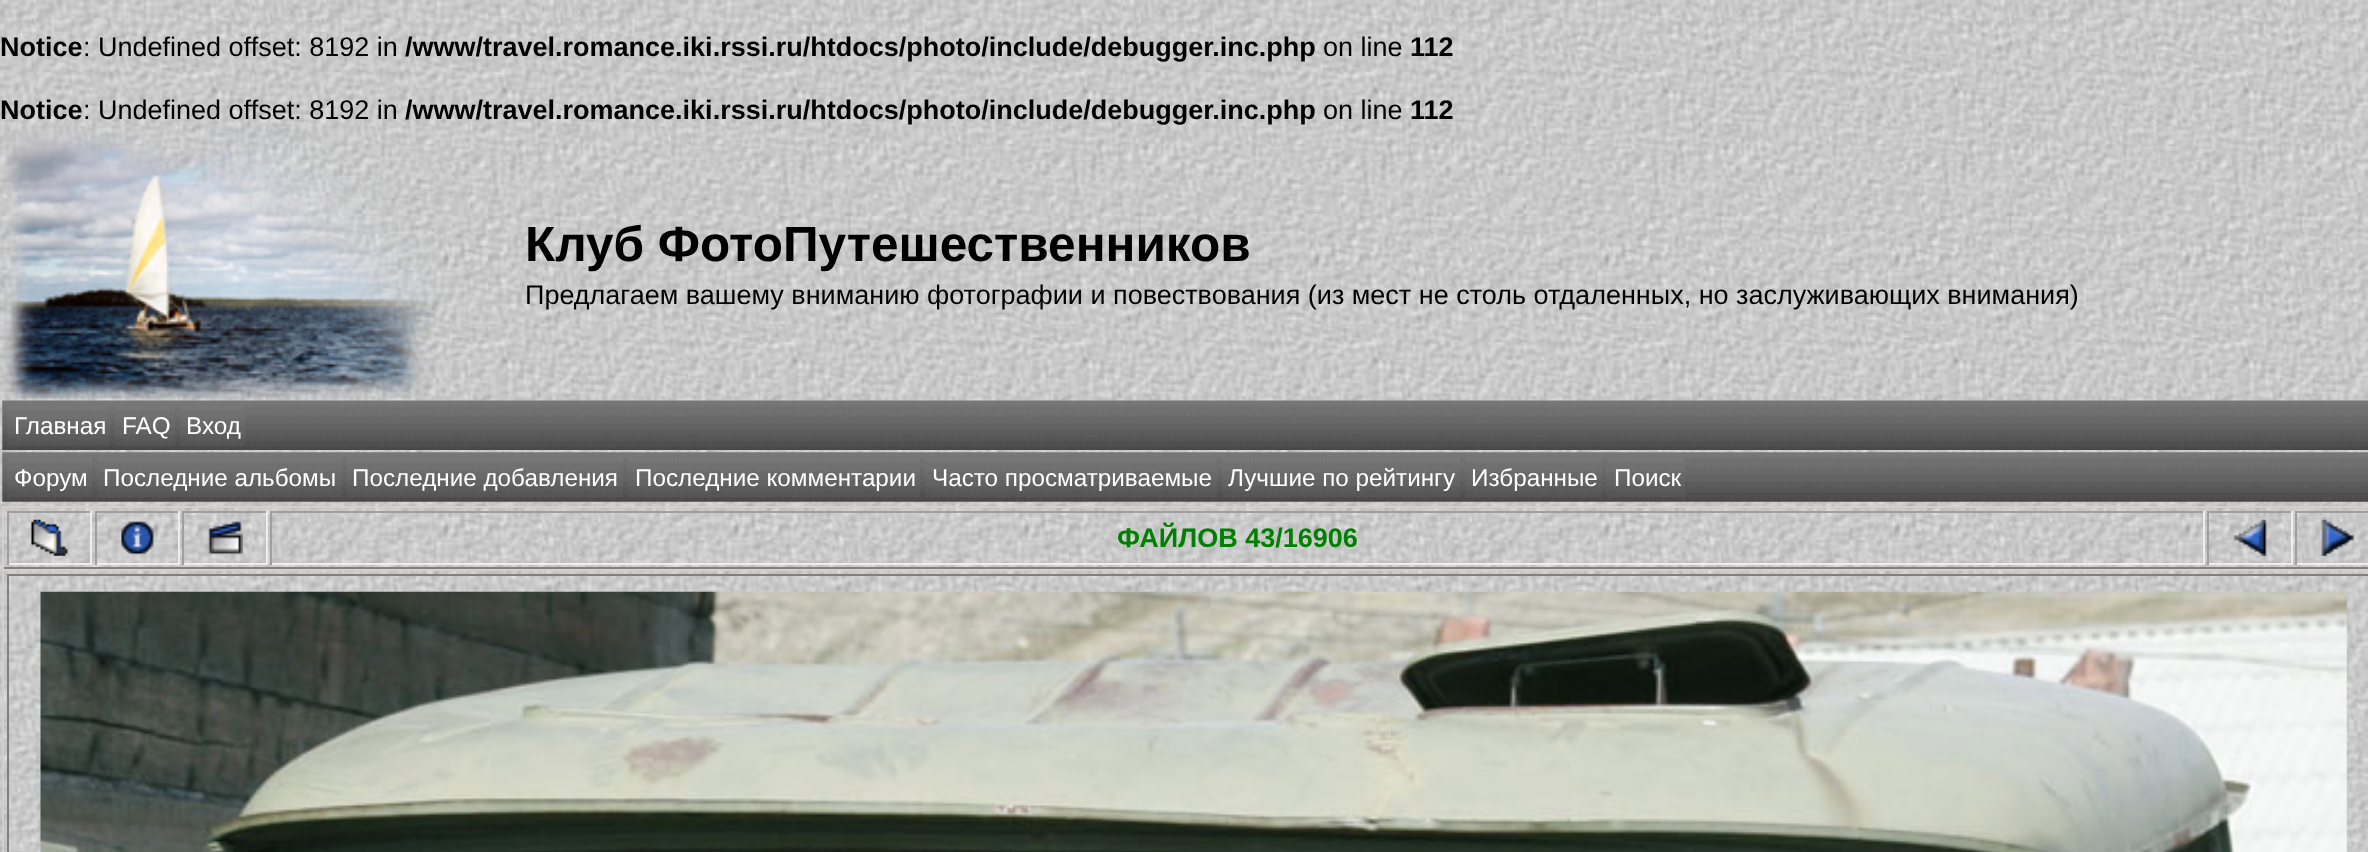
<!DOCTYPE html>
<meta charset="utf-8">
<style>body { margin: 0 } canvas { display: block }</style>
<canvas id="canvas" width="2368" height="852"></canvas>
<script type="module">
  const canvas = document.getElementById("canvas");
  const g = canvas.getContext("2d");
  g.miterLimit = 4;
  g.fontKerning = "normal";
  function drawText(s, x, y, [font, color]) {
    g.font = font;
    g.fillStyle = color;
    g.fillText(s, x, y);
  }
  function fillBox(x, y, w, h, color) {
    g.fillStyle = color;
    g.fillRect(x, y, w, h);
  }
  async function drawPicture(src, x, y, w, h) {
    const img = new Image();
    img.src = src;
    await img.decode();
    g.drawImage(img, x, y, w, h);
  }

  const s1 = ["bold 27px Liberation Sans", "#000000"];
  const s2 = ["27px Liberation Sans", "#000000"];
  const s3 = ["bold 49.5px Liberation Sans", "#000000"];
  const s4 = ["24.25px Liberation Sans", "#FFFFFF"];
  const s5 = ["bold 27px Liberation Sans", "#008000"];

  fillBox(0, 0, 2368, 852, "#FFFFFF");
  await drawPicture("pic1.png", 0, 0, 2368, 852);
  drawText("Notice", 0, 56, s1);
  drawText(": Undefined offset: 8192 in", 83, 56, s2);
  drawText("/www/travel.romance.iki.rssi.ru/htdocs/photo/include/debugger.inc.php", 405, 56, s1);
  drawText("on line", 1323, 56, s2);
  drawText("112", 1410, 56, s1);
  drawText("Notice", 0, 119, s1);
  drawText(": Undefined offset: 8192 in", 83, 119, s2);
  drawText("/www/travel.romance.iki.rssi.ru/htdocs/photo/include/debugger.inc.php", 405, 119, s1);
  drawText("on line", 1323, 119, s2);
  drawText("112", 1410, 119, s1);
  await drawPicture("pic2.png", 2, 129, 435, 270);
  drawText("Клуб ФотоПутешественников", 525, 261, s3);
  drawText("Предлагаем вашему вниманию фотографии и повествования (из мест не столь отдаленных, но заслуживающих внимания)", 525, 304, s2);
  await drawPicture("pic3.png", 2, 400, 2366, 50);
  await drawPicture("pic4.png", 7, 405, 103, 41);
  drawText("Главная", 14, 434, s4);
  await drawPicture("pic5.png", 115, 405, 60, 41);
  drawText("FAQ", 122, 434, s4);
  await drawPicture("pic6.png", 180, 405, 65, 41);
  drawText("Вход", 186, 434, s4);
  await drawPicture("pic7.png", 2, 452, 2366, 50);
  await drawPicture("pic8.png", 7, 457, 85, 40);
  drawText("Форум", 14, 486, s4);
  await drawPicture("pic9.png", 97, 457, 245, 40);
  drawText("Последние альбомы", 103, 486, s4);
  await drawPicture("pic10.png", 346, 457, 277, 40);
  drawText("Последние добавления", 352, 486, s4);
  await drawPicture("pic11.png", 628, 457, 292, 40);
  drawText("Последние комментарии", 635, 486, s4);
  await drawPicture("pic12.png", 925, 457, 292, 40);
  drawText("Часто просматриваемые", 932, 486, s4);
  await drawPicture("pic13.png", 1222, 457, 238, 40);
  drawText("Лучшие по рейтингу", 1228, 486, s4);
  await drawPicture("pic14.png", 1465, 457, 137, 40);
  drawText("Избранные", 1471, 486, s4);
  await drawPicture("pic15.png", 1606, 457, 79, 40);
  drawText("Поиск", 1614, 486, s4);
  fillBox(2, 506, 2366, 2, "#D4D0C8");
  fillBox(2, 567, 2366, 2, "#808080");
  fillBox(2, 506, 2, 63, "#D4D0C8");
  fillBox(7, 511, 85, 2, "#9F9F9F");
  fillBox(90, 511, 2, 54, "#EEEEEE");
  fillBox(7, 563, 85, 2, "#EEEEEE");
  fillBox(7, 511, 2, 54, "#9F9F9F");
  await drawPicture("pic16.png", 31, 519, 37, 37);
  fillBox(95, 511, 85, 2, "#9F9F9F");
  fillBox(178, 511, 2, 54, "#EEEEEE");
  fillBox(95, 563, 85, 2, "#EEEEEE");
  fillBox(95, 511, 2, 54, "#9F9F9F");
  await drawPicture("pic17.png", 121, 521, 33, 34);
  fillBox(182, 511, 86, 2, "#9F9F9F");
  fillBox(266, 511, 2, 54, "#EEEEEE");
  fillBox(182, 563, 86, 2, "#EEEEEE");
  fillBox(182, 511, 2, 54, "#9F9F9F");
  await drawPicture("pic18.png", 208, 521, 35, 34);
  fillBox(270, 511, 1935, 2, "#9F9F9F");
  fillBox(2203, 511, 2, 54, "#EEEEEE");
  fillBox(270, 563, 1935, 2, "#EEEEEE");
  fillBox(270, 511, 2, 54, "#9F9F9F");
  drawText("ФАЙЛОВ 43/16906", 1117, 547, s5);
  fillBox(2207, 511, 86, 2, "#9F9F9F");
  fillBox(2291, 511, 2, 54, "#EEEEEE");
  fillBox(2207, 563, 86, 2, "#EEEEEE");
  fillBox(2207, 511, 2, 54, "#9F9F9F");
  await drawPicture("pic19.png", 2233, 519, 34, 37);
  fillBox(2295, 511, 73, 2, "#9F9F9F");
  fillBox(2295, 563, 73, 2, "#EEEEEE");
  fillBox(2295, 511, 2, 54, "#9F9F9F");
  await drawPicture("pic20.png", 2321, 519, 34, 37);
  fillBox(2, 569, 2366, 2, "#D4D0C8");
  fillBox(2, 569, 2, 283, "#D4D0C8");
  fillBox(7, 574, 2361, 2, "#808080");
  fillBox(7, 574, 2, 278, "#808080");
  await drawPicture("pic21.png", 40, 591, 2307, 261);
</script>
